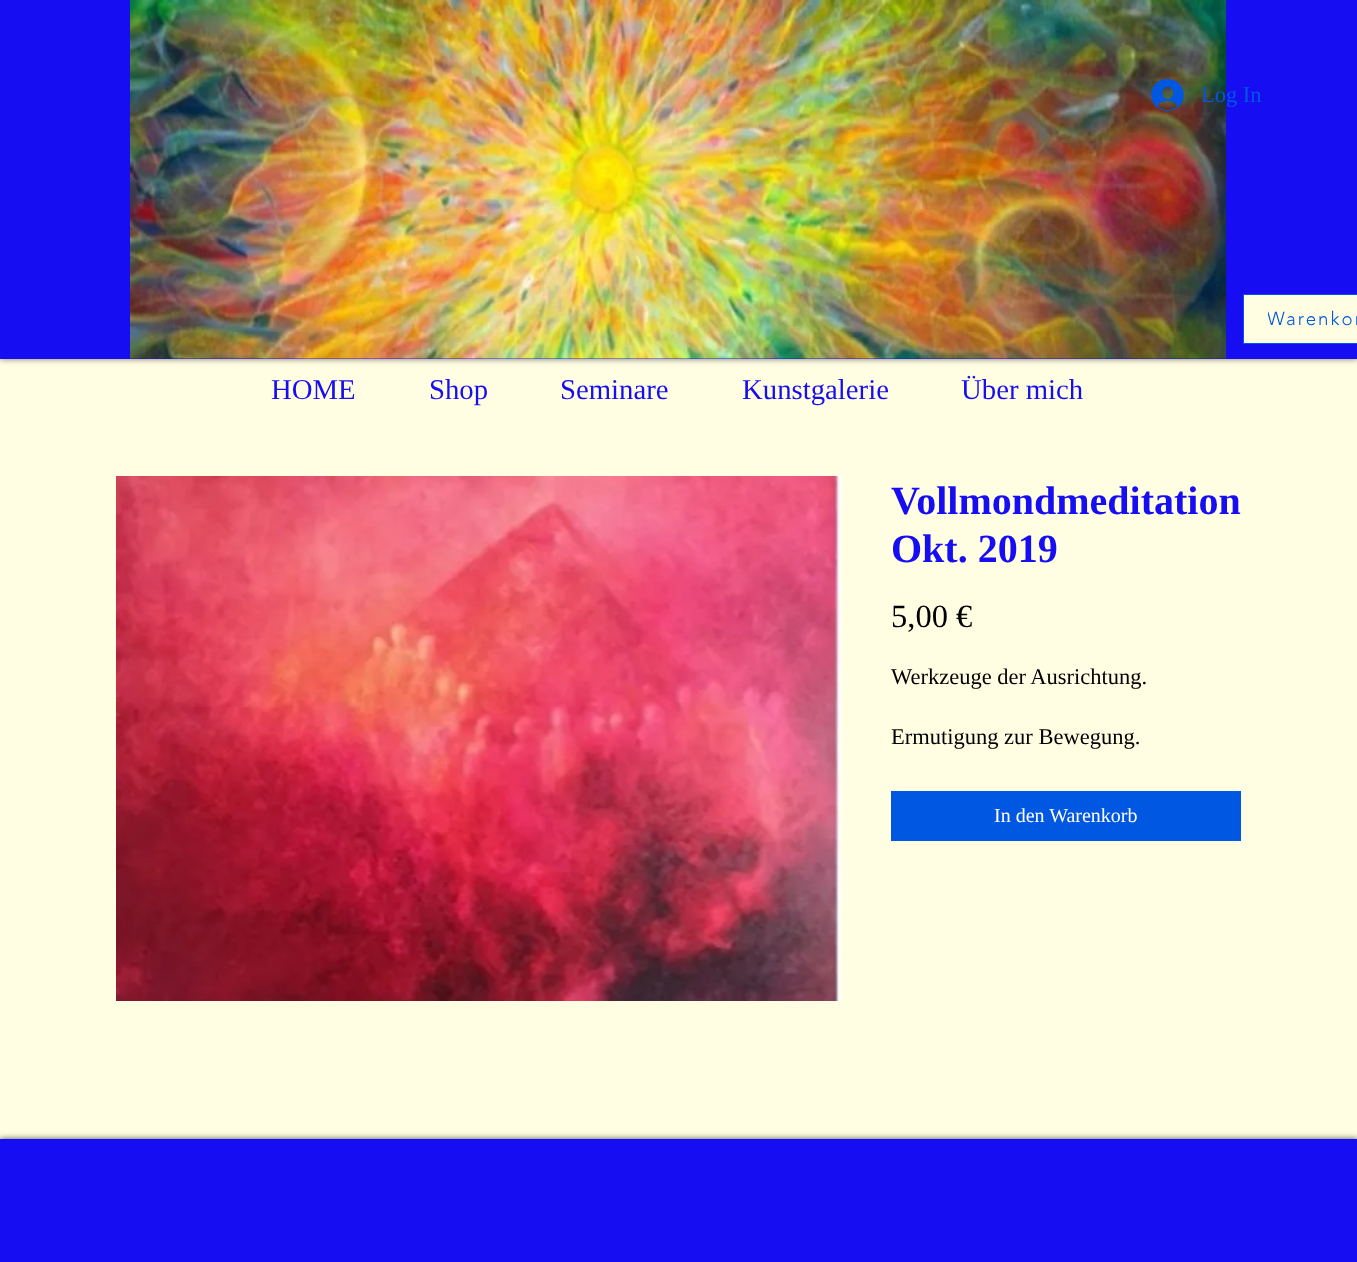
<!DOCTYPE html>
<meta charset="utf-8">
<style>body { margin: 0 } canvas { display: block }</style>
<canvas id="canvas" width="1357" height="1262"></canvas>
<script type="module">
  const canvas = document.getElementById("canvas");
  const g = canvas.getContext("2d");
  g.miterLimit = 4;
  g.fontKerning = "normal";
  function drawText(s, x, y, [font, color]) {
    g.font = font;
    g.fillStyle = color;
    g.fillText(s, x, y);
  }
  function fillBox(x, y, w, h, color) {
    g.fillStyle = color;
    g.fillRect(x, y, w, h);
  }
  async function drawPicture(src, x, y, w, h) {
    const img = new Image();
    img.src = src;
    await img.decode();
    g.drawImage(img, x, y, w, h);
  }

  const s1 = ["22.5px Liberation Serif", "#0057E1"];
  const s2 = ["300 18.75px 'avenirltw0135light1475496'", "#0057E1"];
  const s3 = ["28.75px Liberation Serif", "#170DF2"];
  const s4 = ["bold 40px Liberation Serif", "#170DF2"];
  const s5 = ["32.5px Liberation Serif", "#000000"];
  const s6 = ["22.5px Liberation Serif", "#000000"];
  const s7 = ["20px Liberation Serif", "#FFFFFF"];

  fillBox(0, 0, 1357, 1262, "#FFFDE2");
  g.fillStyle = "rgba(0, 0, 0, 0.5)";
  g.filter = "blur(3px)";
  g.beginPath();
  g.rect(0, 0, 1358, 359);
  g.fill();
  g.filter = "none";
  fillBox(0, 0, 1357, 359, "#170DF2");
  await drawPicture("pic1.png", 130, 0, 1097, 359);
  await drawPicture("pic2.png", 1151, 79, 33, 32);
  drawText("Log In", 1201, 102, s1);
  g.fillStyle = "#FFFDE2";
  g.beginPath();
  g.rect(1243.5, 294.5, 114, 49);
  g.fill();
  g.strokeStyle = "#0057E1";
  g.stroke();
  g.save();
  g.beginPath();
  g.rect(1268, 308, 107, 22);
  g.clip();
  g.letterSpacing = "2px";
  drawText("Warenkor", 1267, 325, s2);
  g.restore();
  drawText("HOME", 271, 399, s3);
  drawText("Shop", 429, 399, s3);
  drawText("Seminare", 560, 399, s3);
  drawText("Kunstgalerie", 742, 399, s3);
  drawText("Über mich", 961, 399, s3);
  await drawPicture("pic3.png", 116, 476, 726, 525);
  drawText("Vollmondmeditation", 891, 514, s4);
  drawText("Okt. 2019", 891, 562, s4);
  drawText("5,00 €", 891, 627, s5);
  drawText("Werkzeuge der Ausrichtung.", 891, 684, s6);
  drawText("Ermutigung zur Bewegung.", 891, 744, s6);
  fillBox(891, 791, 350, 50, "#0057E1");
  drawText("In den Warenkorb", 994, 822, s7);
  g.fillStyle = "rgba(0, 0, 0, 0.7)";
  g.filter = "blur(3px)";
  g.beginPath();
  g.rect(0, 1139, 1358, 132);
  g.fill();
  g.filter = "none";
  fillBox(0, 1139, 1357, 123, "#170DF2");
</script>
